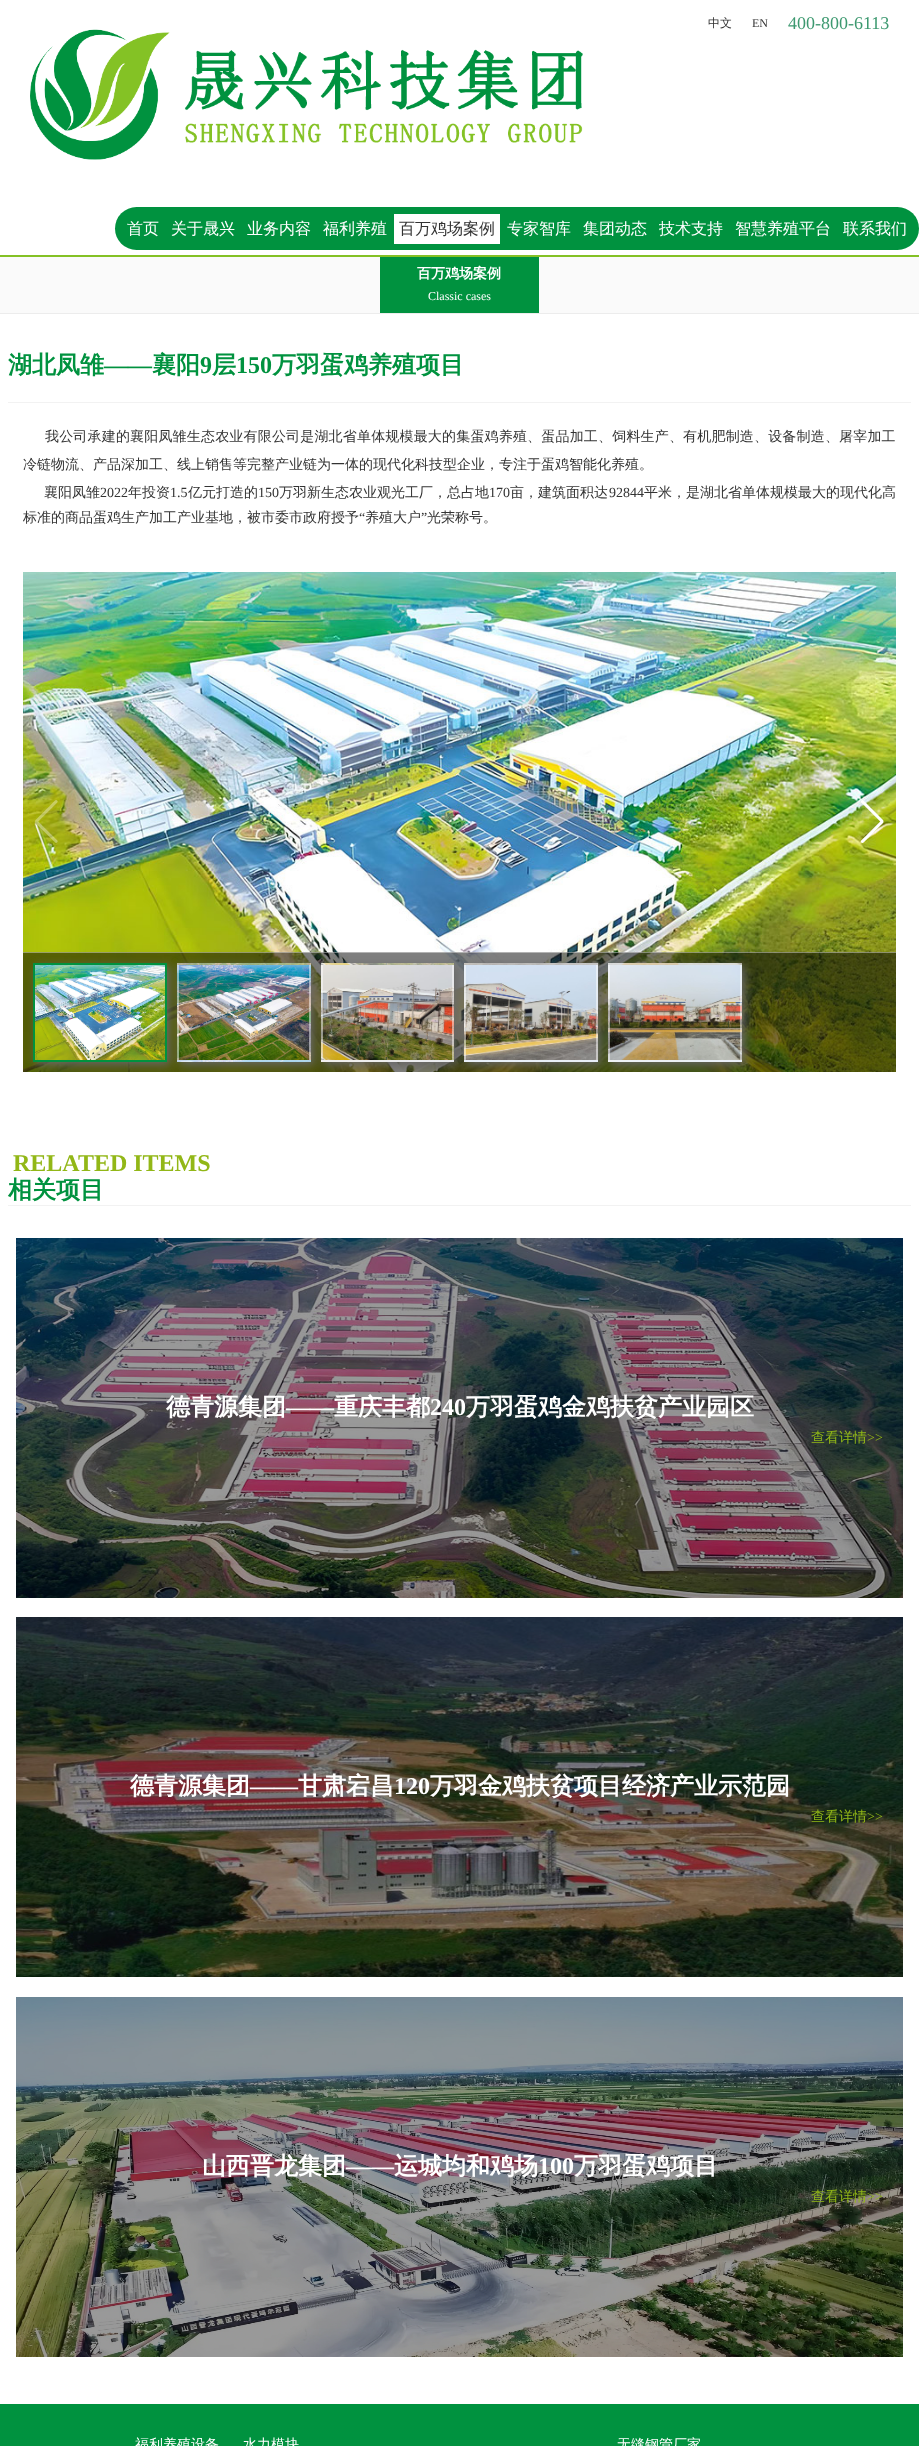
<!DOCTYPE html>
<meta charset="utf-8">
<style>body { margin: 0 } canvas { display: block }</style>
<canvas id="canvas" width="919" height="2446"></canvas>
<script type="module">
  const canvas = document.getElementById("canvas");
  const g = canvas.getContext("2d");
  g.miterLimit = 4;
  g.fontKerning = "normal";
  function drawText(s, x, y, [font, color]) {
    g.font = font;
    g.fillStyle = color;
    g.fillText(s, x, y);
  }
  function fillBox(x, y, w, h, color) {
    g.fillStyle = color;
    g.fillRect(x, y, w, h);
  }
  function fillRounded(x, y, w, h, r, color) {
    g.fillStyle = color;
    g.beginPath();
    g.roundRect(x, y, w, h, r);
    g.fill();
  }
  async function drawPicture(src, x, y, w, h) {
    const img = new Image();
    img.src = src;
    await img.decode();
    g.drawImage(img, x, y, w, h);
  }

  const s1 = ["500 12px WenQuanYi Zen Hei", "#333333"];
  const s2 = ["12px Liberation Serif", "#333333"];
  const s3 = ["18px Liberation Serif", "#3D9970"];
  const s4 = ["500 16px WenQuanYi Zen Hei", "#FFFFFF"];
  const s5 = ["500 16px WenQuanYi Zen Hei", "#333333"];
  const s6 = ["bold 14px WenQuanYi Zen Hei", "#FFFFFF"];
  const s7 = ["12px Liberation Serif", "#FFFFFF"];
  const s8 = ["bold 24px WenQuanYi Zen Hei", "#00923F"];
  const s9 = ["bold 24px Liberation Serif", "#00923F"];
  const s10 = ["500 14px WenQuanYi Zen Hei", "#333333"];
  const s11 = ["14px Liberation Serif", "#333333"];
  const s12 = ["bold 24px Liberation Serif", "#92B717"];
  const s13 = ["bold 24px WenQuanYi Zen Hei", "#FFFFFF"];
  const s14 = ["bold 24px Liberation Serif", "#FFFFFF"];
  const s15 = ["500 14px WenQuanYi Zen Hei", "#92B717"];
  const s16 = ["14px Liberation Serif", "#92B717"];
  const s17 = ["500 14px WenQuanYi Zen Hei", "#FFFFFF"];

  fillBox(0, 0, 919, 2446, "#FFFFFF");
  fillBox(0, 255, 919, 2, "#84C125");
  drawText("中文", 708, 27, s1);
  drawText("EN", 752, 27, s2);
  drawText("400-800-6113", 788, 29, s3);
  fillRounded(115, 207, 804, 43, 21.5, "#00923F");
  drawText("首页", 127, 234, s4);
  drawText("关于晟兴", 171, 234, s4);
  drawText("业务内容", 247, 234, s4);
  drawText("福利养殖", 323, 234, s4);
  fillBox(394, 214, 106, 30, "#FFFFFF");
  drawText("百万鸡场案例", 399, 234, s5);
  drawText("专家智库", 507, 234, s4);
  drawText("集团动态", 583, 234, s4);
  drawText("技术支持", 659, 234, s4);
  drawText("智慧养殖平台", 735, 234, s4);
  drawText("联系我们", 843, 234, s4);
  await drawPicture("pic1.png", 30, 29, 553, 131);
  fillBox(0, 257, 919, 56, "#FAFAFA");
  fillBox(0, 313, 919, 1, "#ECECEC");
  fillBox(380, 257, 159, 56, "#00923F");
  drawText("百万鸡场案例", 417, 278, s6);
  drawText("Classic cases", 428, 300, s7);
  fillBox(8, 402, 903, 1, "#F2F2F2");
  drawText("湖北凤雏", 8, 373, s8);
  drawText("——", 104, 373, s9);
  drawText("襄阳", 152, 373, s8);
  drawText("9", 200, 373, s9);
  drawText("层", 212, 373, s8);
  drawText("150", 236, 373, s9);
  drawText("万羽蛋鸡养殖项目", 272, 373, s8);
  g.letterSpacing = "0.18px";
  drawText("我公司承建的襄阳凤雏生态农业有限公司是湖北省单体规模最大的集蛋鸡养殖、蛋品加工、饲料生产、有机肥制造、设备制造、屠宰加工", 45, 441, s10);
  g.letterSpacing = "0px";
  drawText("冷链物流、产品深加工、线上销售等完整产业链为一体的现代化科技型企业，专注于蛋鸡智能化养殖。", 23, 469, s10);
  drawText("襄阳凤雏", 44, 497, s10);
  drawText("2022", 100, 497, s11);
  drawText("年投资", 128, 497, s10);
  drawText("1.5", 170, 497, s11);
  drawText("亿元打造的", 188, 497, s10);
  drawText("150", 258, 497, s11);
  drawText("万羽新生态农业观光工厂，总占地", 279, 497, s10);
  drawText("170", 489, 497, s11);
  drawText("亩，建筑面积达", 510, 497, s10);
  drawText("92844", 609, 497, s11);
  drawText("平米，是湖北省单体规模最大的现代化高", 644, 497, s10);
  drawText("标准的商品蛋鸡生产加工产业基地，被市委市政府授予", 23, 522, s10);
  drawText("“", 359, 522, s11);
  drawText("养殖大户", 365, 522, s10);
  drawText("”", 421, 522, s11);
  drawText("光荣称号。", 427, 522, s10);
  await drawPicture("pic2.png", 23, 572, 873, 500);
  await drawPicture("pic3.png", 35, 800, 23, 43);
  await drawPicture("pic4.png", 860, 800, 24, 43);
  fillBox(23, 952, 873, 120, "rgba(0, 0, 0, 0.5)");
  fillBox(23, 952, 873, 1, "rgba(254, 254, 254, 0.4)");
  g.save();
  g.beginPath();
  g.rect(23, 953, 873, 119);
  g.clip();
  g.fillStyle = "#666666";
  g.filter = "blur(5px)";
  g.beginPath();
  g.rect(36, 966, 134, 99);
  g.fill();
  g.filter = "none";
  g.restore();
  await drawPicture("pic5.png", 35, 965, 130, 95);
  g.strokeStyle = "#00923F";
  g.lineWidth = 2;
  g.strokeRect(34, 964, 132, 97);
  g.save();
  g.beginPath();
  g.rect(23, 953, 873, 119);
  g.clip();
  g.fillStyle = "#666666";
  g.filter = "blur(5px)";
  g.beginPath();
  g.rect(180, 966, 134, 99);
  g.fill();
  g.filter = "none";
  g.restore();
  await drawPicture("pic6.png", 177, 963, 134, 99);
  g.strokeStyle = "rgba(254, 254, 254, 0.5)";
  g.strokeRect(178, 964, 132, 97);
  g.save();
  g.beginPath();
  g.rect(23, 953, 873, 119);
  g.clip();
  g.fillStyle = "#666666";
  g.filter = "blur(5px)";
  g.beginPath();
  g.rect(324, 966, 133, 99);
  g.fill();
  g.filter = "none";
  g.restore();
  await drawPicture("pic7.png", 321, 963, 133, 99);
  g.strokeRect(322, 964, 131, 97);
  g.save();
  g.beginPath();
  g.rect(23, 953, 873, 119);
  g.clip();
  g.fillStyle = "#666666";
  g.filter = "blur(5px)";
  g.beginPath();
  g.rect(467, 966, 134, 99);
  g.fill();
  g.filter = "none";
  g.restore();
  await drawPicture("pic8.png", 464, 963, 134, 99);
  g.strokeRect(465, 964, 132, 97);
  g.save();
  g.beginPath();
  g.rect(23, 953, 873, 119);
  g.clip();
  g.fillStyle = "#666666";
  g.filter = "blur(5px)";
  g.beginPath();
  g.rect(611, 966, 134, 99);
  g.fill();
  g.filter = "none";
  g.restore();
  await drawPicture("pic9.png", 608, 963, 134, 99);
  g.strokeRect(609, 964, 132, 97);
  fillBox(8, 1205, 903, 1, "#F2F2F2");
  drawText("RELATED ITEMS", 13, 1171, s12);
  drawText("相关项目", 8, 1198, s8);
  await drawPicture("pic10.png", 16, 1238, 887, 360);
  drawText("德青源集团", 166, 1415, s13);
  drawText("——", 286, 1415, s14);
  drawText("重庆丰都", 334, 1415, s13);
  drawText("240", 430, 1415, s14);
  drawText("万羽蛋鸡金鸡扶贫产业园区", 466, 1415, s13);
  drawText("查看详情", 811, 1442, s15);
  drawText(">>", 867, 1442, s16);
  await drawPicture("pic11.png", 16, 1617, 887, 360);
  drawText("德青源集团", 130, 1794, s13);
  drawText("——", 250, 1794, s14);
  drawText("甘肃宕昌", 298, 1794, s13);
  drawText("120", 394, 1794, s14);
  drawText("万羽金鸡扶贫项目经济产业示范园", 430, 1794, s13);
  drawText("查看详情", 811, 1821, s15);
  drawText(">>", 867, 1821, s16);
  await drawPicture("pic12.png", 16, 1997, 887, 360);
  drawText("山西晋龙集团", 202, 2174, s13);
  drawText("——", 346, 2174, s14);
  drawText("运城均和鸡场", 394, 2174, s13);
  drawText("100", 538, 2174, s14);
  drawText("万羽蛋鸡项目", 574, 2174, s13);
  drawText("查看详情", 811, 2201, s15);
  drawText(">>", 867, 2201, s16);
  fillBox(0, 2404, 919, 42, "#00923F");
  drawText("福利养殖设备", 135, 2449, s17);
  drawText("水力模块", 243, 2449, s17);
  drawText("无缝钢管厂家", 617, 2449, s17);
</script>
